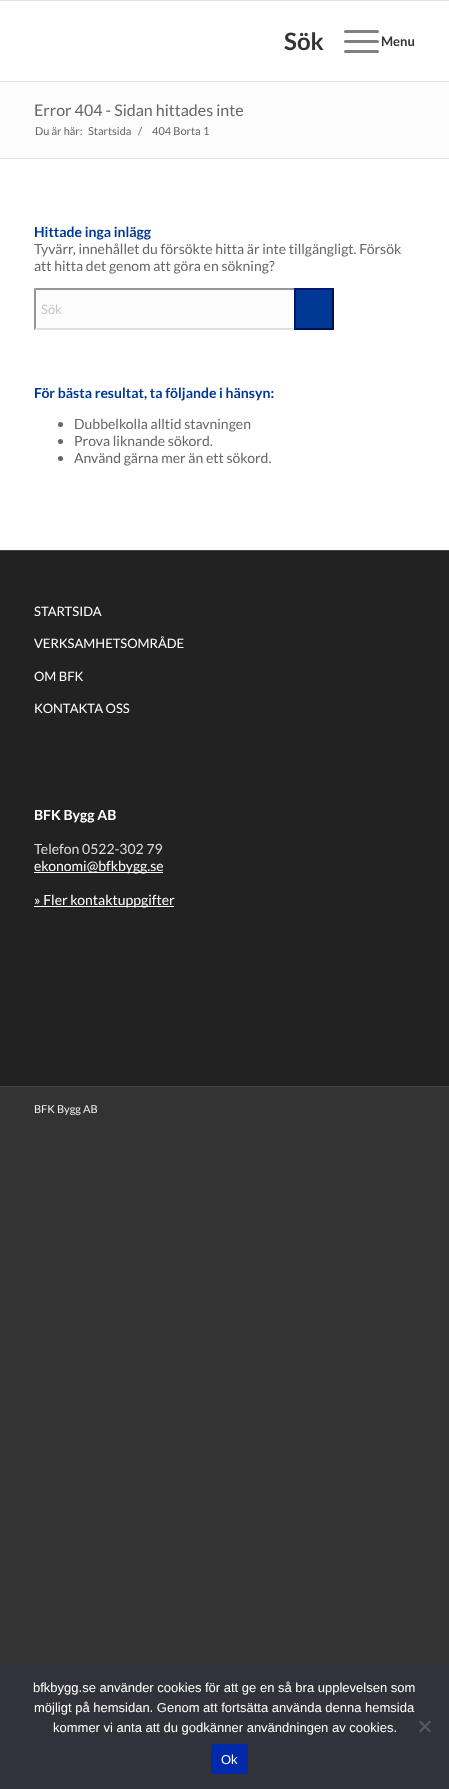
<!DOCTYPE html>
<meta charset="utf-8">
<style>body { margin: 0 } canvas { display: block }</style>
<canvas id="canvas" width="449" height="1789"></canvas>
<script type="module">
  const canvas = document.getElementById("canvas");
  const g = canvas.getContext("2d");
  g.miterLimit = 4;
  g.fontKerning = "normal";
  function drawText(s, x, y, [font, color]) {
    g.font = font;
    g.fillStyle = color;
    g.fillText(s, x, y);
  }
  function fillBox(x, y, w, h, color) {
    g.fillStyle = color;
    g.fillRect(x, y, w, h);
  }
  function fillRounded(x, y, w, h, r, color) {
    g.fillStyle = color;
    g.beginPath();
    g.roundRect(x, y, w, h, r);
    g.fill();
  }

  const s1 = ["bold 24px Lato", "#333333"];
  const s2 = ["bold 13px Lato", "#333333"];
  const s3 = ["16px Lato", "#666666"];
  const s4 = ["11px Lato", "#666666"];
  const s5 = ["bold 14px Lato", "#003995"];
  const s6 = ["14px Lato", "#666666"];
  const s7 = ["13px Lato", "#C7C7C7"];
  const s8 = ["13px Lato", "#FFFFFF"];
  const s9 = ["bold 14px Lato", "#FFFFFF"];
  const s10 = ["14px Lato", "#DDDDDD"];
  const s11 = ["14px Lato", "#FFFFFF"];
  const s12 = ["11px Lato", "#EEEEEE"];
  const s13 = ["13px Liberation Sans", "#FFFFFF"];

  fillBox(0, 0, 449, 1789, "#333333");
  fillBox(0, 1, 449, 549, "#FFFFFF");
  fillBox(0, 0, 449, 1, "#E1E1E1");
  fillBox(0, 81, 449, 1, "#E1E1E1");
  drawText("Sök", 284, 50, s1);
  fillRounded(344, 40, 35, 3, 1.5, "#808080");
  fillRounded(344, 30, 35, 3, 1.5, "#808080");
  fillRounded(344, 50, 35, 3, 1.5, "#808080");
  drawText("Menu", 381, 46, s2);
  fillBox(0, 82, 449, 76, "#FCFCFC");
  drawText("Error 404 - Sidan hittades inte", 34, 116, s3);
  drawText("Du är här:", 35, 135, s4);
  drawText("Startsida", 88, 135, s4);
  drawText("1", 203, 135, s4);
  drawText("/", 138, 135, s4);
  drawText("404 Borta", 152, 135, s4);
  fillBox(0, 158, 449, 1, "#E1E1E1");
  drawText("Hittade inga inlägg", 34, 237, s5);
  drawText("Tyvärr, innehållet du försökte hitta är inte tillgängligt. Försök", 34, 254, s6);
  drawText("att hitta det genom att göra en sökning?", 34, 271, s6);
  fillBox(34, 288, 260, 42, "#FCFCFC");
  g.fillStyle = "#969696";
  g.beginPath();
  g.moveTo(34, 288);
  g.lineTo(334, 288);
  g.lineTo(332, 290);
  g.lineTo(36, 290);
  g.closePath();
  g.fill();
  g.fillStyle = "#E1E1E1";
  g.beginPath();
  g.moveTo(334, 330);
  g.lineTo(34, 330);
  g.lineTo(36, 328);
  g.lineTo(332, 328);
  g.closePath();
  g.fill();
  g.fillStyle = "#969696";
  g.beginPath();
  g.moveTo(34, 330);
  g.lineTo(34, 288);
  g.lineTo(36, 290);
  g.lineTo(36, 328);
  g.closePath();
  g.fill();
  drawText("Sök", 41, 314, s7);
  fillBox(294, 288, 40, 42, "#003995");
  g.fillStyle = "#001773";
  g.beginPath();
  g.moveTo(294, 288);
  g.lineTo(334, 288);
  g.lineTo(332, 290);
  g.lineTo(296, 290);
  g.closePath();
  g.fill();
  g.fillStyle = "#000F4D";
  g.beginPath();
  g.moveTo(334, 288);
  g.lineTo(334, 330);
  g.lineTo(332, 328);
  g.lineTo(332, 290);
  g.closePath();
  g.fill();
  g.beginPath();
  g.moveTo(334, 330);
  g.lineTo(294, 330);
  g.lineTo(296, 328);
  g.lineTo(332, 328);
  g.closePath();
  g.fill();
  g.fillStyle = "#001773";
  g.beginPath();
  g.moveTo(294, 330);
  g.lineTo(294, 288);
  g.lineTo(296, 290);
  g.lineTo(296, 328);
  g.closePath();
  g.fill();
  drawText("För bästa resultat, ta följande i hänsyn:", 34, 398, s5);
  g.fillStyle = "#666666";
  g.beginPath();
  g.arc(60.5, 424.5, 2.5, 0, Math.PI * 2);
  g.fill();
  drawText("Dubbelkolla alltid stavningen", 74, 429, s6);
  g.beginPath();
  g.arc(60.5, 441.5, 2.5, 0, Math.PI * 2);
  g.fill();
  drawText("Prova liknande sökord.", 74, 446, s6);
  g.beginPath();
  g.arc(60.5, 458.5, 2.5, 0, Math.PI * 2);
  g.fill();
  drawText("Använd gärna mer än ett sökord.", 74, 463, s6);
  fillBox(0, 551, 449, 535, "#222222");
  fillBox(0, 550, 449, 1, "#444444");
  drawText("STARTSIDA", 34, 616, s8);
  drawText("VERKSAMHETSOMRÅDE", 34, 648, s8);
  drawText("OM BFK", 34, 681, s8);
  drawText("KONTAKTA OSS", 34, 713, s8);
  drawText("BFK Bygg AB", 34, 820, s9);
  drawText("Telefon 0522-302 79", 34, 854, s10);
  fillBox(34, 872, 129, 1, "#FFFFFF");
  drawText("ekonomi@bfkbygg.se", 34, 871, s11);
  fillBox(34, 906, 140, 1, "#FFFFFF");
  drawText("» Fler kontaktuppgifter", 34, 905, s11);
  fillBox(0, 1086, 449, 1, "#444444");
  drawText("BFK Bygg AB", 34, 1113, s12);
  fillBox(0, 1663, 449, 126, "#32323A");
  drawText("bfkbygg.se använder cookies för att ge en så bra upplevelsen som", 33, 1692, s13);
  drawText("möjligt på hemsidan. Genom att fortsätta använda denna hemsida", 34, 1712, s13);
  drawText("kommer vi anta att du godkänner användningen av cookies.", 53, 1732, s13);
  g.fillStyle = "#59595D";
  g.beginPath();
  g.moveTo(429.5, 1720.5);
  g.lineTo(431, 1722);
  g.lineTo(420.5, 1732.5);
  g.lineTo(419, 1731);
  g.closePath();
  g.fill();
  g.beginPath();
  g.moveTo(419, 1722);
  g.lineTo(420.5, 1720.5);
  g.lineTo(431, 1731);
  g.lineTo(429.5, 1732.5);
  g.closePath();
  g.fill();
  fillRounded(211, 1744, 37, 30, 3, "#002AAA");
  drawText("Ok", 221, 1764, s13);
</script>
